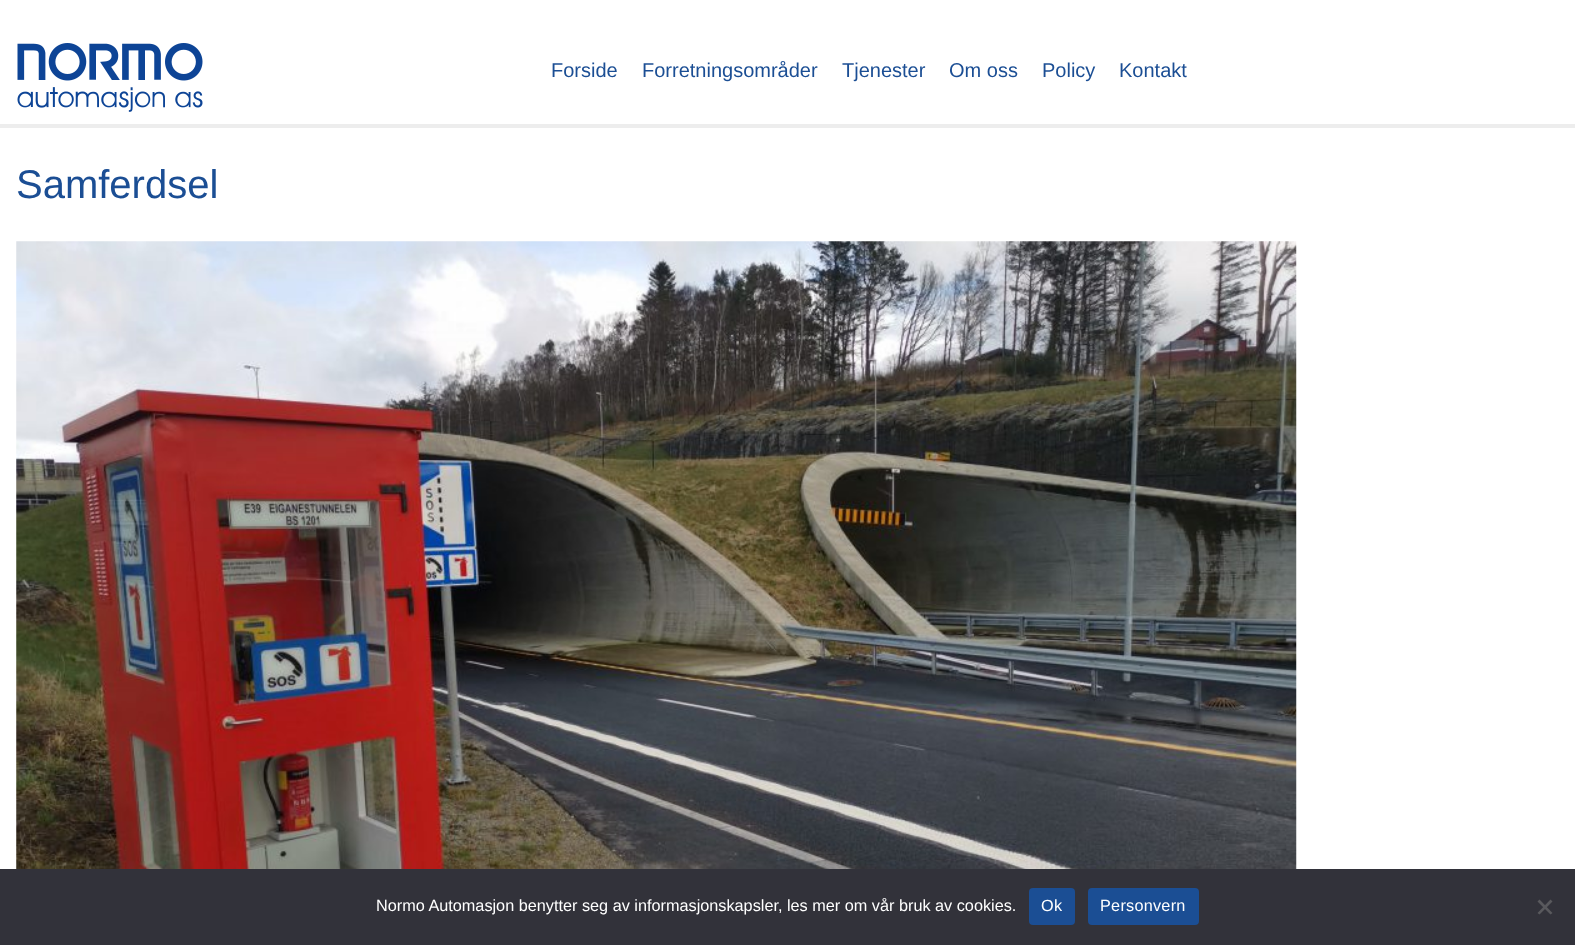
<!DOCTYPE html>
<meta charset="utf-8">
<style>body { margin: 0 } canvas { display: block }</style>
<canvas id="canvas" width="1575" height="945"></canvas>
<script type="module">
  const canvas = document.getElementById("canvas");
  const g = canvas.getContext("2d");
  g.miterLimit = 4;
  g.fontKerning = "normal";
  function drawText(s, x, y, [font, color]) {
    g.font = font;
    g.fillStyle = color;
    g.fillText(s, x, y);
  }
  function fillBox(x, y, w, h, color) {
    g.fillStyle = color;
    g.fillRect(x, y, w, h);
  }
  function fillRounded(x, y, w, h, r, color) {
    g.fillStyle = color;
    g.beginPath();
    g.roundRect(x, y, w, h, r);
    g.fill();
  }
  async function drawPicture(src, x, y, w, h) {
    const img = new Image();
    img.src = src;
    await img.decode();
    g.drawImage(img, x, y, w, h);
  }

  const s1 = ["20px Liberation Sans", "#1B4E94"];
  const s2 = ["40px Liberation Sans", "#1B4E94"];
  const s3 = ["16.25px Liberation Sans", "#FFFFFF"];

  fillBox(0, 0, 1575, 945, "#FFFFFF");
  fillBox(0, 124, 1575, 4, "#EDEDED");
  await drawPicture("pic1.png", 17, 43, 186, 69);
  drawText("Forside", 551, 77, s1);
  drawText("Forretningsområder", 642, 77, s1);
  drawText("Tjenester", 842, 77, s1);
  drawText("Om oss", 949, 77, s1);
  drawText("Policy", 1042, 77, s1);
  drawText("Kontakt", 1119, 77, s1);
  drawText("Samferdsel", 16, 198, s2);
  await drawPicture("pic2.png", 16, 241, 1281, 628);
  fillBox(0, 869, 1575, 76, "#32323A");
  drawText("Normo Automasjon benytter seg av informasjonskapsler, les mer om vår bruk av cookies.", 376, 911, s3);
  fillRounded(1029, 888, 46, 37, 4, "#1B4E94");
  g.letterSpacing = "0.25px";
  drawText("Ok", 1041, 911, s3);
  fillRounded(1088, 888, 111, 37, 4, "#1B4E94");
  drawText("Personvern", 1100, 911, s3);
  g.fillStyle = "#59595D";
  g.beginPath();
  g.moveTo(1550.5, 899.5);
  g.lineTo(1552.5, 901.5);
  g.lineTo(1539.5, 914.5);
  g.lineTo(1537.5, 913);
  g.closePath();
  g.fill();
  g.beginPath();
  g.moveTo(1537.5, 901.5);
  g.lineTo(1539.5, 899.5);
  g.lineTo(1552.5, 913);
  g.lineTo(1550.5, 914.5);
  g.closePath();
  g.fill();
</script>
